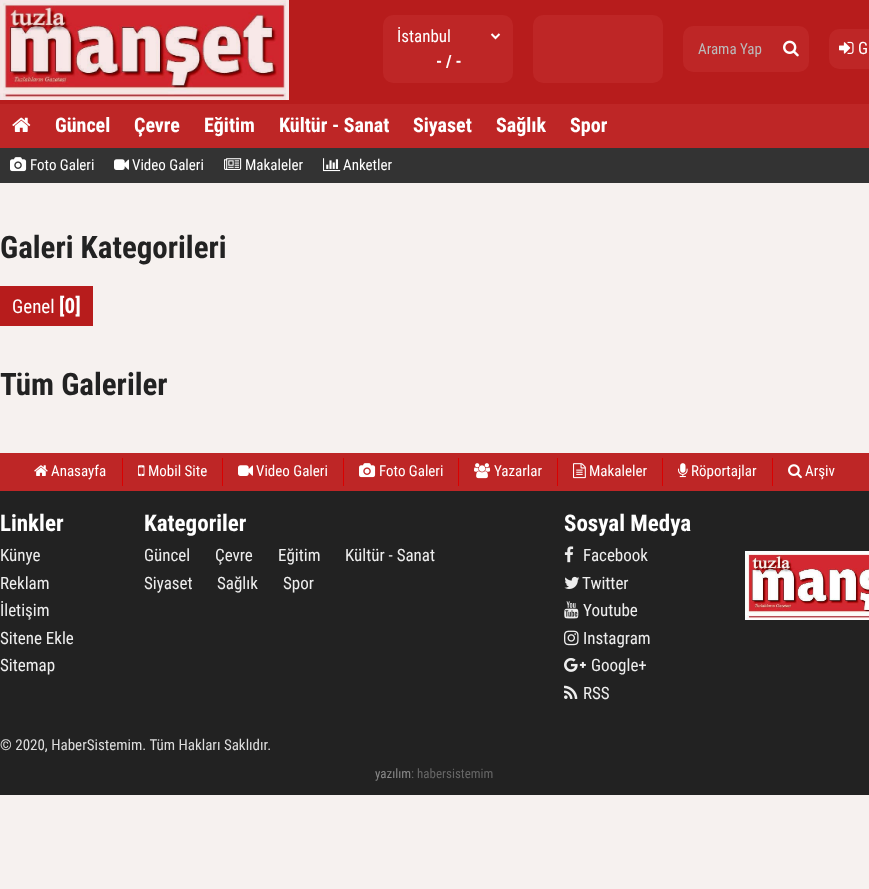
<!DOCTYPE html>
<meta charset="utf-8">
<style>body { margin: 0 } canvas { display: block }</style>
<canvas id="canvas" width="869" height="889"></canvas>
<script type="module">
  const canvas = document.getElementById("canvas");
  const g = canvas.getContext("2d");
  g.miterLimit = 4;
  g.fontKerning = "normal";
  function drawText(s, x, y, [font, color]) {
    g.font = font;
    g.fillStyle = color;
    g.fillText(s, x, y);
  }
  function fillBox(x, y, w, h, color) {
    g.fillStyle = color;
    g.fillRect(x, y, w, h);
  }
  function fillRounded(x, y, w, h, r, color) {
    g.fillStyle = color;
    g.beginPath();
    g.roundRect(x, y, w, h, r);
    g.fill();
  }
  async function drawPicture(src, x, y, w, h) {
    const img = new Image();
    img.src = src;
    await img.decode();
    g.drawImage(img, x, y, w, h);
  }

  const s1 = ["17px Roboto Condensed", "#FFFFFF"];
  const s2 = ["bold 17px Roboto Condensed", "#FFFFFF"];
  const s3 = ["15px Roboto Condensed", "#BBBBBB"];
  const s4 = ["bold 20px Roboto Condensed", "#FFFFFF"];
  const s5 = ["15px Roboto Condensed", "#FFFFFF"];
  const s6 = ["bold 31px Roboto Condensed", "#222222"];
  const s7 = ["19px Roboto Condensed", "#FFFFFF"];
  const s8 = ["bold 21px Roboto Condensed", "#FFFFFF"];
  const s9 = ["bold 23px Roboto Condensed", "#FFFFFF"];
  const s10 = ["17px Roboto Condensed", "#EEEEEE"];
  const s11 = ["15px Roboto Condensed", "#DDDDDD"];
  const s12 = ["13px Roboto Condensed", "#888888"];
  const s13 = ["13px Roboto Condensed", "#666666"];

  fillBox(0, 0, 869, 889, "#F6F1EF");
  fillBox(0, 0, 869, 104, "#B71C1C");
  await drawPicture("pic1.png", 0, 0, 289, 100);
  fillRounded(383, 15, 130, 68, 10, "#BE2626");
  g.beginPath();
  g.moveTo(491.5, 34);
  g.lineTo(495.5, 38);
  g.lineTo(499.5, 34);
  g.strokeStyle = "#FFFFFF";
  g.lineWidth = 2;
  g.stroke();
  drawText("İstanbul", 397, 42, s1);
  drawText("- / -", 436, 67, s2);
  fillRounded(533, 15, 130, 68, 10, "#BE2626");
  fillRounded(683, 26, 126, 46, 10, "#BE2626");
  drawText("Arama Yap", 698, 54, s3);
  await drawPicture("pic2.png", 783, 40, 16, 17);
  fillRounded(829, 29, 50, 40, 10, "#BE2626");
  await drawPicture("pic3.png", 839, 41, 15, 13);
  drawText("G", 858, 54, s1);
  fillBox(0, 104, 869, 44, "#BE2626");
  await drawPicture("pic4.png", 12, 117, 19, 15);
  drawText("Güncel", 55, 132, s4);
  drawText("Çevre", 134, 132, s4);
  drawText("Eğitim", 204, 132, s4);
  drawText("Kültür - Sanat", 279, 132, s4);
  drawText("Siyaset", 413, 132, s4);
  drawText("Sağlık", 496, 132, s4);
  drawText("Spor", 570, 132, s4);
  fillBox(0, 148, 869, 35, "#333333");
  await drawPicture("pic5.png", 10, 157, 17, 15);
  drawText("Foto Galeri", 30, 170, s5);
  await drawPicture("pic6.png", 114, 159, 15, 11);
  drawText("Video Galeri", 132, 170, s5);
  await drawPicture("pic7.png", 224, 158, 18, 12);
  drawText("Makaleler", 245, 170, s5);
  await drawPicture("pic8.png", 323, 158, 18, 14);
  drawText("Anketler", 343, 170, s5);
  drawText("Galeri Kategorileri", 0, 258, s6);
  fillBox(0, 286, 93, 40, "#B71C1C");
  drawText("Genel", 12, 313, s7);
  drawText("[0]", 59, 313, s8);
  drawText("Tüm Galeriler", 0, 395, s6);
  fillBox(0, 491, 869, 304, "#222222");
  fillBox(0, 453, 869, 38, "#BE2626");
  fillBox(122, 458, 1, 28, "#DA0000");
  await drawPicture("pic9.png", 34, 465, 14, 11);
  drawText("Anasayfa", 51, 476, s5);
  fillBox(222, 458, 1, 28, "#DA0000");
  await drawPicture("pic10.png", 138, 465, 7, 11);
  drawText("Mobil Site", 148, 476, s5);
  fillBox(343, 458, 1, 28, "#DA0000");
  await drawPicture("pic11.png", 238, 465, 15, 11);
  drawText("Video Galeri", 256, 476, s5);
  fillBox(458, 458, 1, 28, "#DA0000");
  await drawPicture("pic12.png", 359, 463, 17, 15);
  drawText("Foto Galeri", 379, 476, s5);
  fillBox(557, 458, 1, 28, "#DA0000");
  await drawPicture("pic13.png", 474, 463, 17, 16);
  drawText("Yazarlar", 494, 476, s5);
  fillBox(662, 458, 1, 28, "#DA0000");
  await drawPicture("pic14.png", 573, 463, 13, 16);
  drawText("Makaleler", 589, 476, s5);
  fillBox(772, 458, 1, 28, "#DA0000");
  await drawPicture("pic15.png", 678, 463, 10, 15);
  drawText("Röportajlar", 691, 476, s5);
  await drawPicture("pic16.png", 788, 464, 14, 15);
  drawText("Arşiv", 805, 476, s5);
  drawText("Linkler", 0, 531, s9);
  drawText("Künye", 0, 561, s10);
  drawText("Reklam", 0, 589, s10);
  drawText("İletişim", 0, 616, s10);
  drawText("Sitene Ekle", 0, 644, s10);
  drawText("Sitemap", 0, 671, s10);
  drawText("Kategoriler", 144, 531, s9);
  drawText("Güncel", 144, 561, s10);
  drawText("Çevre", 215, 561, s10);
  drawText("Eğitim", 278, 561, s10);
  drawText("Kültür - Sanat", 345, 561, s10);
  drawText("Siyaset", 144, 589, s10);
  drawText("Sağlık", 217, 589, s10);
  drawText("Spor", 283, 589, s10);
  drawText("Sosyal Medya", 564, 531, s9);
  await drawPicture("pic17.png", 564, 546, 10, 17);
  drawText("Facebook", 583, 561, s10);
  await drawPicture("pic18.png", 564, 576, 16, 13);
  drawText("Twitter", 582, 589, s10);
  await drawPicture("pic19.png", 564, 601, 15, 18);
  drawText("Youtube", 583, 616, s10);
  await drawPicture("pic20.png", 564, 630, 15, 16);
  drawText("Instagram", 583, 644, s10);
  await drawPicture("pic21.png", 564, 658, 22, 14);
  drawText("Google+", 591, 671, s10);
  await drawPicture("pic22.png", 564, 685, 14, 14);
  drawText("RSS", 583, 699, s10);
  await drawPicture("pic23.png", 745, 551, 124, 69);
  drawText("© 2020, HaberSistemim. Tüm Hakları Saklıdır.", 0, 750, s11);
  drawText("yazılım", 375, 778, s12);
  drawText(": habersistemim", 411, 778, s13);
</script>
